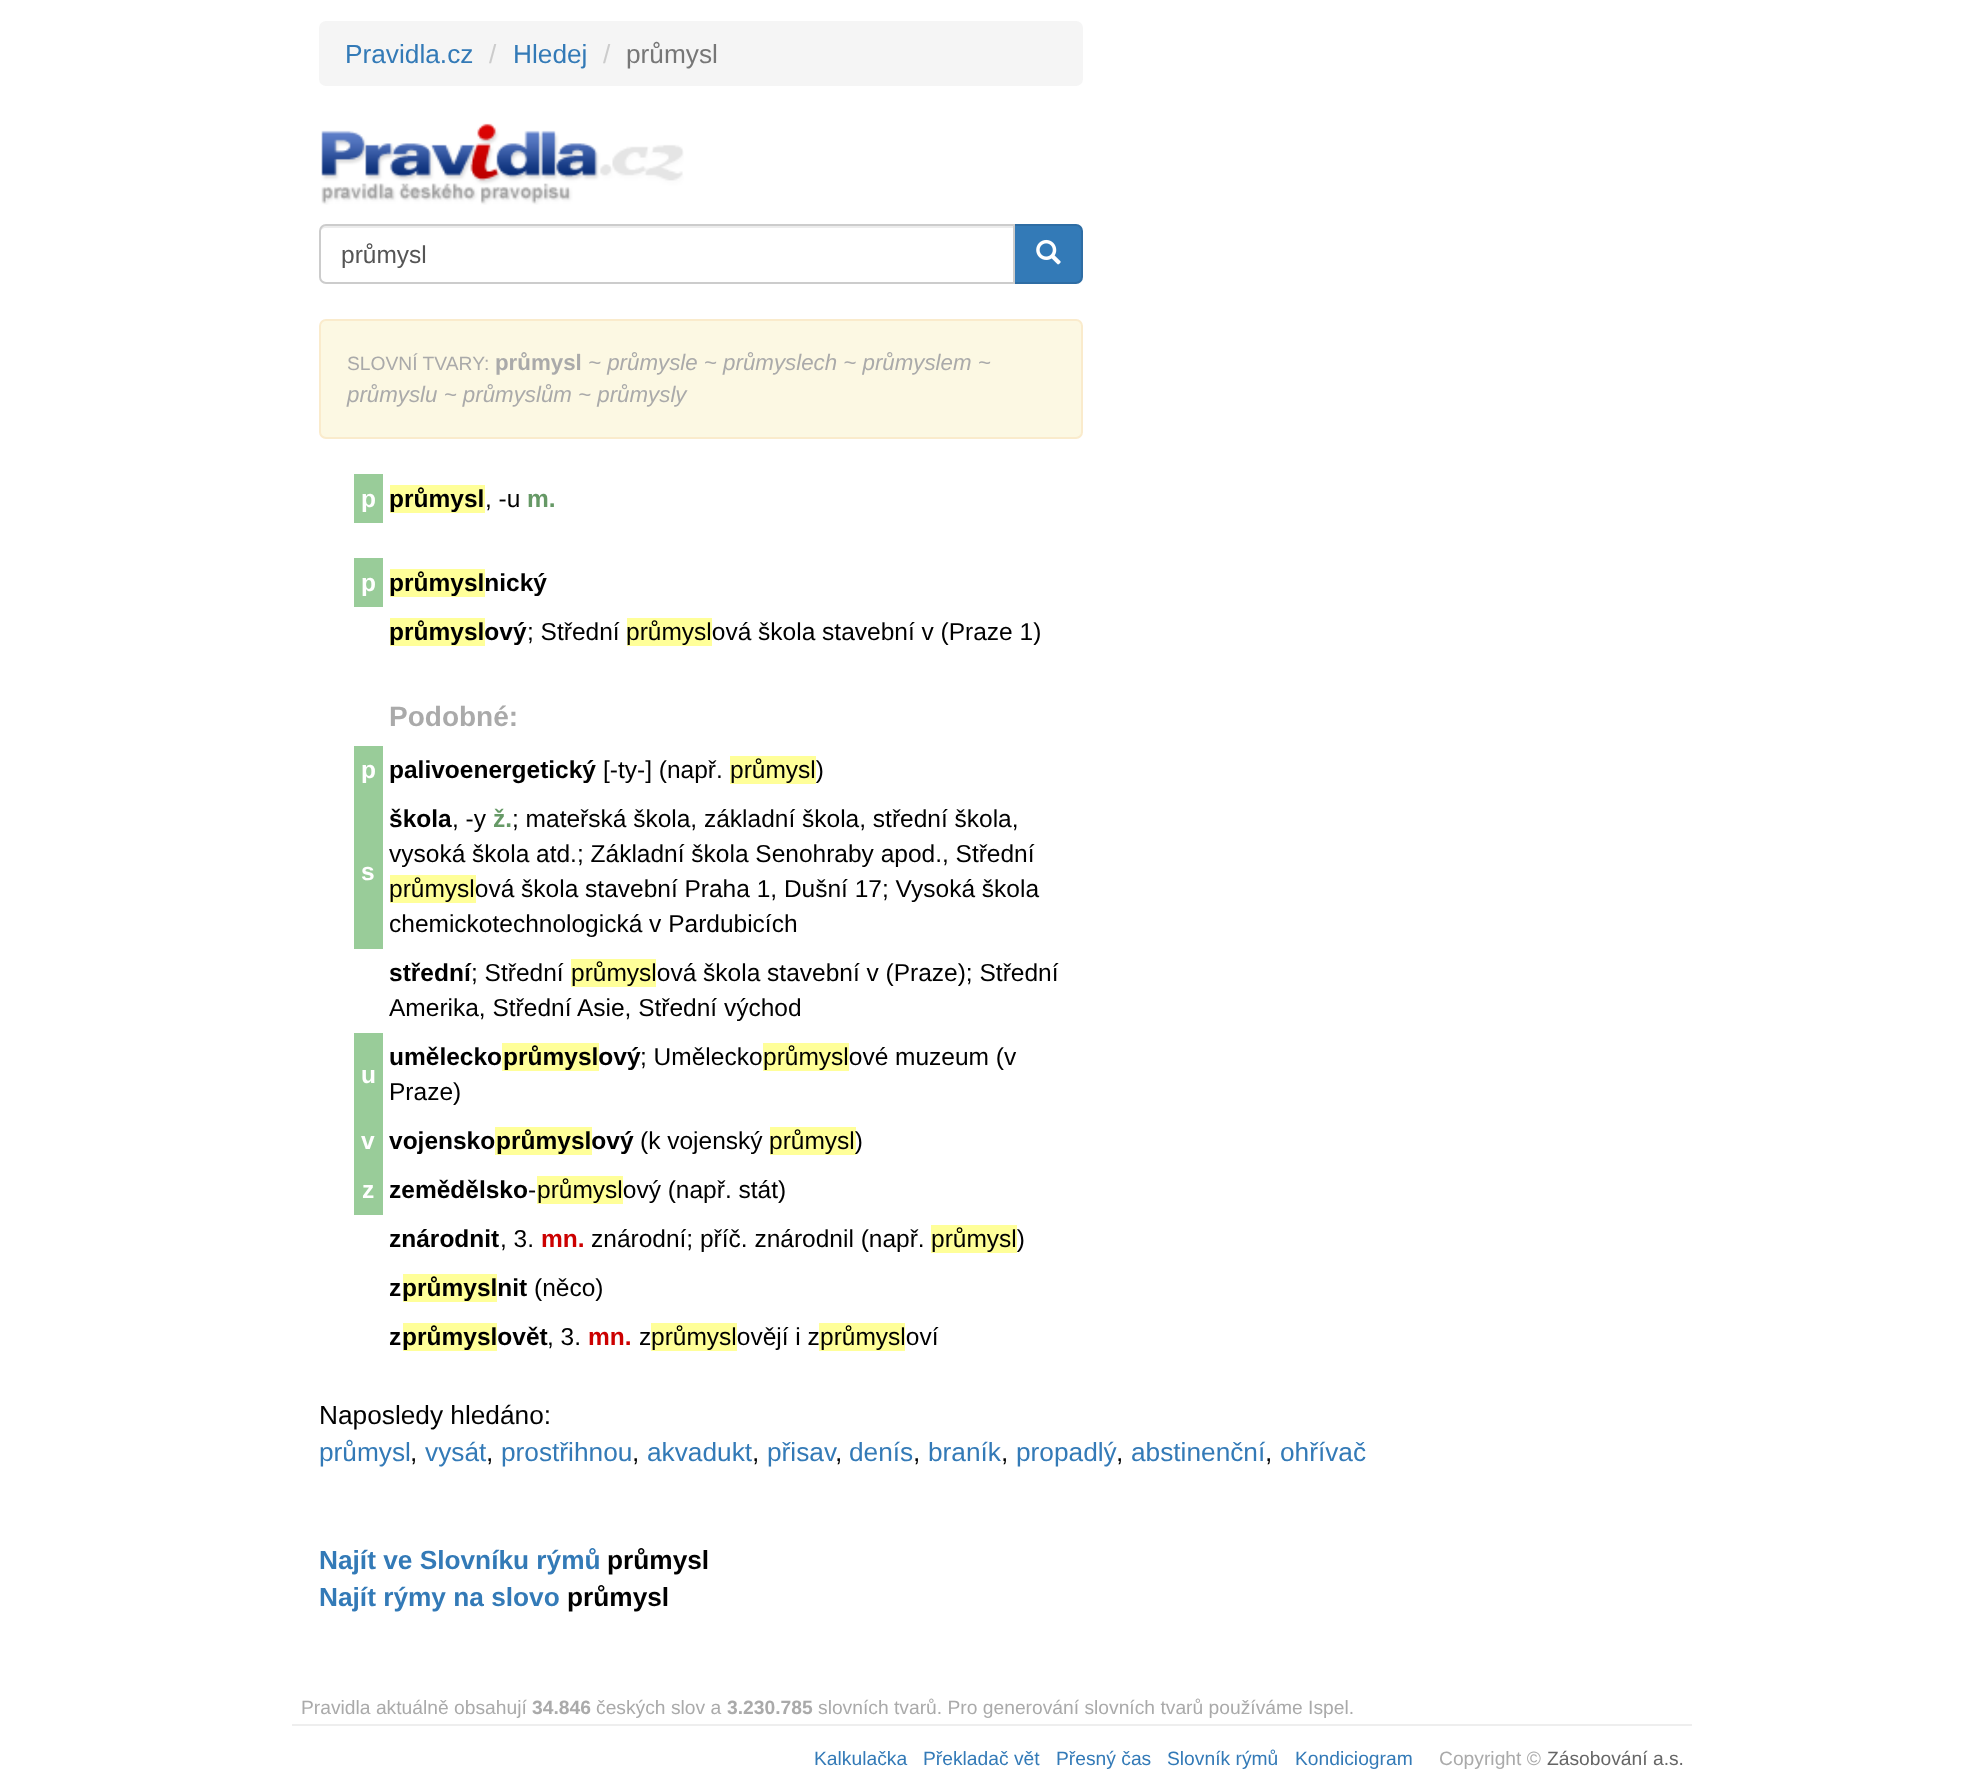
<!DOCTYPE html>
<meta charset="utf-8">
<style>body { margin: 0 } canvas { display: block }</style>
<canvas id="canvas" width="1984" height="1775"></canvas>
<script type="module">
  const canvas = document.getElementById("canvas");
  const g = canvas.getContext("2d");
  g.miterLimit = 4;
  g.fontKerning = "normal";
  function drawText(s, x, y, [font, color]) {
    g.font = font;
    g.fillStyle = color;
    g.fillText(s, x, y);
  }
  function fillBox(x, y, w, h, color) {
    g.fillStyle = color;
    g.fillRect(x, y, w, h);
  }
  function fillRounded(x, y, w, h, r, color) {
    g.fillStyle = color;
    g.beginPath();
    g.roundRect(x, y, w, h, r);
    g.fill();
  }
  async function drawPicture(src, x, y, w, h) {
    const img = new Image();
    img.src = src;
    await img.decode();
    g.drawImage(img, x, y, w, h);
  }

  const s1 = ["26.25px Liberation Sans", "#337AB7"];
  const s2 = ["26.25px Liberation Sans", "#CCCCCC"];
  const s3 = ["26.25px Liberation Sans", "#777777"];
  const s4 = ["24.5px Liberation Sans", "#555555"];
  const s5 = ["19.25px Liberation Sans", "#AAAAAA"];
  const s6 = ["bold 22.3px Liberation Sans", "#AAAAAA"];
  const s7 = ["italic 22.3px Liberation Sans", "#AAAAAA"];
  const s8 = ["bold 24.5px Liberation Sans", "#FFFFFF"];
  const s9 = ["bold 24.5px Liberation Sans", "#000000"];
  const s10 = ["24.5px Liberation Sans", "#000000"];
  const s11 = ["bold 24.5px Liberation Sans", "#669966"];
  const s12 = ["bold 28px Liberation Sans", "#AAAAAA"];
  const s13 = ["bold 24.5px Liberation Sans", "#CC0000"];
  const s14 = ["26.25px Liberation Sans", "#000000"];
  const s15 = ["bold 26.25px Liberation Sans", "#337AB7"];
  const s16 = ["bold 26.25px Liberation Sans", "#000000"];
  const s17 = ["bold 19.25px Liberation Sans", "#AAAAAA"];
  const s18 = ["19.25px Liberation Sans", "#337AB7"];
  const s19 = ["19.25px Liberation Sans", "#666666"];

  fillBox(0, 0, 1984, 1775, "#FFFFFF");
  fillRounded(319, 21, 764, 65, 7, "#F5F5F5");
  drawText("Pravidla.cz", 345, 63, s1);
  drawText("/", 489, 63, s2);
  drawText("Hledej", 513, 63, s1);
  drawText("/", 603, 63, s2);
  drawText("průmysl", 626, 63, s3);
  await drawPicture("pic1.png", 321, 123, 363, 82);
  g.fillStyle = "#337AB7";
  g.beginPath();
  g.roundRect(1014, 225, 68, 58, [0, 6, 6, 0]);
  g.fill();
  g.strokeStyle = "#2E6DA4";
  g.lineWidth = 2;
  g.stroke();
  g.fillStyle = "#FFFFFF";
  g.beginPath();
  g.roundRect(319, 224, 696, 60, [7, 0, 0, 7]);
  g.fill();
  g.fillStyle = "#ECECEC";
  g.beginPath();
  g.moveTo(326, 228);
  g.lineTo(1013, 228);
  g.lineTo(1013, 226);
  g.lineTo(325, 226);
  g.bezierCurveTo(322, 226, 320, 228, 320, 231);
  g.lineTo(320, 233);
  g.bezierCurveTo(320, 230, 323, 228, 326, 228);
  g.closePath();
  g.fill();
  g.beginPath();
  g.roundRect(320, 225, 694, 58, [6, 0, 0, 6]);
  g.strokeStyle = "#CCCCCC";
  g.stroke();
  drawText("průmysl", 341, 263, s4);
  await drawPicture("pic2.png", 1036, 239, 25, 26);
  g.fillStyle = "#FCF8E3";
  g.beginPath();
  g.roundRect(320, 320, 762, 118, 6);
  g.fill();
  g.strokeStyle = "#FAEBCC";
  g.stroke();
  drawText("SLOVNÍ TVARY:", 347, 370, s5);
  drawText("průmysl", 495, 370, s6);
  drawText("~ průmysle ~ průmyslech ~ průmyslem ~", 588, 370, s7);
  drawText("průmyslu ~ průmyslům ~ průmysly", 347, 402, s7);
  fillBox(354, 474, 29, 49, "#99CC99");
  drawText("p", 361, 507, s8);
  fillBox(390, 485, 95, 28, "#FFFF99");
  drawText("průmysl", 389, 507, s9);
  drawText(", -u", 485, 507, s10);
  drawText("m.", 527, 507, s11);
  fillBox(354, 558, 29, 49, "#99CC99");
  drawText("p", 361, 591, s8);
  fillBox(390, 569, 95, 28, "#FFFF99");
  drawText("průmyslnický", 389, 591, s9);
  fillBox(390, 618, 95, 28, "#FFFF99");
  drawText("průmyslový", 389, 640, s9);
  drawText("; Střední", 527, 640, s10);
  fillBox(627, 618, 85, 28, "#FFFF99");
  drawText("průmyslová škola stavební v (Praze 1)", 626, 640, s10);
  drawText("Podobné:", 389, 726, s12);
  fillBox(354, 746, 29, 203, "#99CC99");
  drawText("p", 361, 778, s8);
  drawText("palivoenergetický", 389, 778, s9);
  drawText("[-ty-] (např.", 603, 778, s10);
  fillBox(730, 756, 86, 28, "#FFFF99");
  drawText("průmysl)", 730, 778, s10);
  drawText("s", 361, 880, s8);
  drawText("škola", 389, 827, s9);
  drawText(", -y", 452, 827, s10);
  drawText("ž.", 493, 827, s11);
  drawText("; mateřská škola, základní škola, střední škola,", 512, 827, s10);
  drawText("vysoká škola atd.; Základní škola Senohraby apod., Střední", 389, 862, s10);
  fillBox(390, 875, 86, 28, "#FFFF99");
  drawText("průmyslová škola stavební Praha 1, Dušní 17; Vysoká škola", 389, 897, s10);
  drawText("chemickotechnologická v Pardubicích", 389, 932, s10);
  drawText("střední", 389, 981, s9);
  drawText("; Střední", 471, 981, s10);
  fillBox(571, 959, 85, 28, "#FFFF99");
  drawText("průmyslová škola stavební v (Praze); Střední", 571, 981, s10);
  drawText("Amerika, Střední Asie, Střední východ", 389, 1016, s10);
  fillBox(354, 1033, 29, 182, "#99CC99");
  drawText("u", 361, 1083, s8);
  drawText("umělecko", 389, 1065, s9);
  fillBox(502, 1043, 97, 28, "#FFFF99");
  drawText("průmyslový", 503, 1065, s9);
  drawText("; Umělecko", 640, 1065, s10);
  fillBox(763, 1043, 86, 28, "#FFFF99");
  drawText("průmyslové muzeum (v", 763, 1065, s10);
  drawText("Praze)", 389, 1100, s10);
  drawText("v", 361, 1149, s8);
  drawText("vojensko", 389, 1149, s9);
  fillBox(495, 1127, 97, 28, "#FFFF99");
  drawText("průmyslový", 496, 1149, s9);
  drawText("(k vojenský", 640, 1149, s10);
  fillBox(770, 1127, 86, 28, "#FFFF99");
  drawText("průmysl)", 769, 1149, s10);
  drawText("z", 362, 1198, s8);
  drawText("zemědělsko", 389, 1198, s9);
  drawText("-", 528, 1198, s10);
  fillBox(537, 1176, 86, 28, "#FFFF99");
  drawText("průmyslový (např. stát)", 537, 1198, s10);
  drawText("znárodnit", 389, 1247, s9);
  drawText(", 3.", 500, 1247, s10);
  drawText("mn.", 541, 1247, s13);
  drawText("znárodní; příč. znárodnil (např.", 591, 1247, s10);
  fillBox(931, 1225, 86, 28, "#FFFF99");
  drawText("průmysl)", 931, 1247, s10);
  drawText("z", 389, 1296, s9);
  fillBox(403, 1274, 94, 28, "#FFFF99");
  drawText("průmyslnit", 402, 1296, s9);
  drawText("(něco)", 534, 1296, s10);
  drawText("z", 389, 1345, s9);
  fillBox(403, 1323, 94, 28, "#FFFF99");
  drawText("průmyslovět", 402, 1345, s9);
  drawText(", 3.", 547, 1345, s10);
  drawText("mn.", 588, 1345, s13);
  drawText("z", 639, 1345, s10);
  fillBox(651, 1323, 86, 28, "#FFFF99");
  drawText("průmyslovějí i z", 651, 1345, s10);
  fillBox(819, 1323, 86, 28, "#FFFF99");
  drawText("průmysloví", 820, 1345, s10);
  drawText("Naposledy hledáno:", 319, 1424, s14);
  drawText("průmysl", 319, 1461, s1);
  drawText(",", 410, 1461, s14);
  drawText("vysát", 425, 1461, s1);
  drawText(",", 486, 1461, s14);
  drawText("prostřihnou", 501, 1461, s1);
  drawText(",", 632, 1461, s14);
  drawText("akvadukt", 647, 1461, s1);
  drawText(",", 752, 1461, s14);
  drawText("přisav", 767, 1461, s1);
  drawText(",", 835, 1461, s14);
  drawText("denís", 849, 1461, s1);
  drawText(",", 913, 1461, s14);
  drawText("braník", 928, 1461, s1);
  drawText(",", 1001, 1461, s14);
  drawText("propadlý", 1016, 1461, s1);
  drawText(",", 1116, 1461, s14);
  drawText("abstinenční", 1131, 1461, s1);
  drawText(",", 1265, 1461, s14);
  drawText("ohřívač", 1280, 1461, s1);
  drawText("Najít ve Slovníku rýmů", 319, 1569, s15);
  drawText("průmysl", 607, 1569, s16);
  drawText("Najít rýmy na slovo", 319, 1606, s15);
  drawText("průmysl", 567, 1606, s16);
  drawText("Pravidla aktuálně obsahují", 301, 1714, s5);
  drawText("34.846", 532, 1714, s17);
  drawText("českých slov a", 596, 1714, s5);
  drawText("3.230.785", 727, 1714, s17);
  drawText("slovních tvarů. Pro generování slovních tvarů používáme Ispel.", 818, 1714, s5);
  fillBox(292, 1724, 1400, 2, "#EEEEEE");
  drawText("Kalkulačka", 814, 1765, s18);
  drawText("Překladač vět", 923, 1765, s18);
  drawText("Přesný čas", 1056, 1765, s18);
  drawText("Slovník rýmů", 1167, 1765, s18);
  drawText("Kondiciogram", 1295, 1765, s18);
  drawText("Copyright ©", 1439, 1765, s5);
  drawText("Zásobování a.s.", 1547, 1765, s19);
</script>
